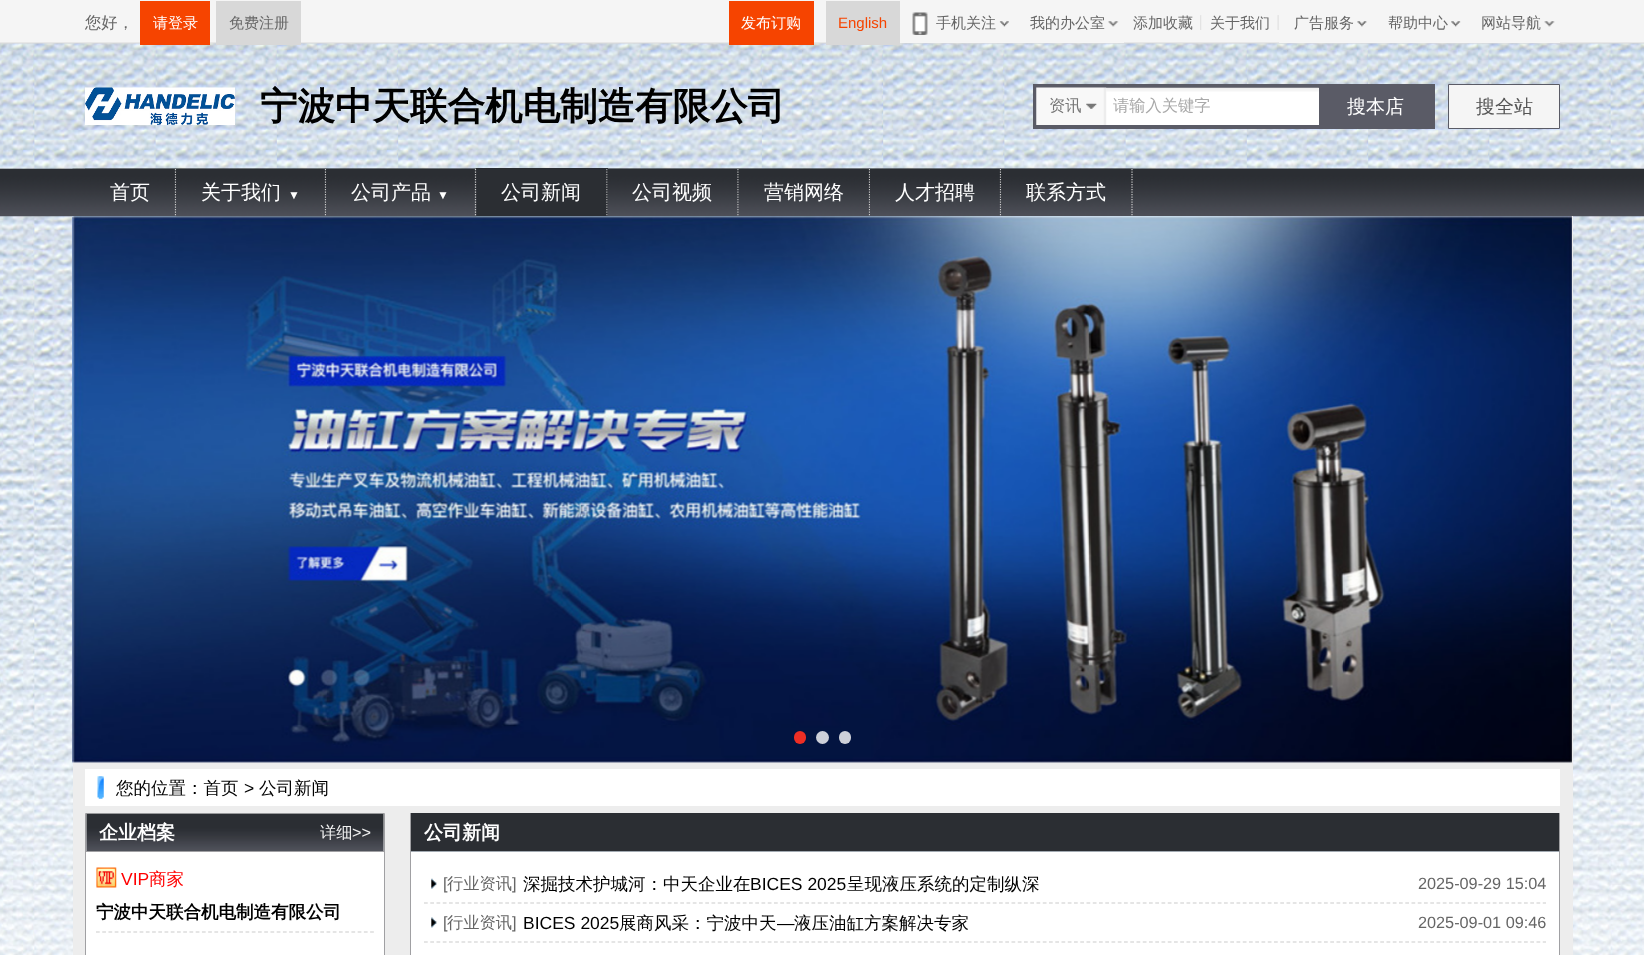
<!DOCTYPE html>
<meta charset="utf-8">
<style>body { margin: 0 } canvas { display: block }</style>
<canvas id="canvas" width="1644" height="955"></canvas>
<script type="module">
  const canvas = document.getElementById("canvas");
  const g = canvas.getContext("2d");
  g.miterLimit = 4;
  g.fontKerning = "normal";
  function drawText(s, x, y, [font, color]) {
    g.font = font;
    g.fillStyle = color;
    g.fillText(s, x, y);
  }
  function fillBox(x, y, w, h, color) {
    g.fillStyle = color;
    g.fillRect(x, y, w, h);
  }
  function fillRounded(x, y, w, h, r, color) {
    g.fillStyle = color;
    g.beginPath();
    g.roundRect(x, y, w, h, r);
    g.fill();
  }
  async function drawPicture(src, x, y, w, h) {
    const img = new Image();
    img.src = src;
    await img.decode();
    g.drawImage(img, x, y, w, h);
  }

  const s1 = ["500 16.25px WenQuanYi Zen Hei", "#666666"];
  const s2 = ["500 15px WenQuanYi Zen Hei", "#FFFFFF"];
  const s3 = ["500 15px WenQuanYi Zen Hei", "#666666"];
  const s4 = ["15px Liberation Sans", "#F64400"];
  const s5 = ["bold 37.5px WenQuanYi Zen Hei", "#000000"];
  const s6 = ["500 16.25px WenQuanYi Zen Hei", "#777777"];
  const s7 = ["500 16.25px WenQuanYi Zen Hei", "#A9A9A9"];
  const s8 = ["500 19px WenQuanYi Zen Hei", "#FFFFFF"];
  const s9 = ["500 19px WenQuanYi Zen Hei", "#555555"];
  const s10 = ["500 20px WenQuanYi Zen Hei", "#FFFFFF"];
  const s11 = ["12px Liberation Sans", "#FFFFFF"];
  const s12 = ["500 17.5px WenQuanYi Zen Hei", "#000000"];
  const s13 = ["17.5px Liberation Sans", "#000000"];
  const s14 = ["bold 19px WenQuanYi Zen Hei", "#FFFFFF"];
  const s15 = ["500 16.25px WenQuanYi Zen Hei", "#F1F1F1"];
  const s16 = ["16.25px Liberation Sans", "#F1F1F1"];
  const s17 = ["17.5px Liberation Sans", "#FF0000"];
  const s18 = ["500 17.5px WenQuanYi Zen Hei", "#FF0000"];
  const s19 = ["bold 17.5px WenQuanYi Zen Hei", "#000000"];
  const s20 = ["16.25px Liberation Sans", "#666666"];

  fillBox(0, 0, 1644, 955, "#FFFFFF");
  await drawPicture("pic1.png", 0, 43, 1644, 912);
  await drawPicture("pic2.png", 0, 0, 1644, 44);
  drawText("您好，", 85, 28, s1);
  fillBox(140, 1, 70, 44, "#F64400");
  drawText("请登录", 153, 28, s2);
  fillBox(216, 1, 85, 44, "#D8D8D8");
  drawText("免费注册", 229, 28, s3);
  fillBox(729, 1, 85, 44, "#F64400");
  drawText("发布订购", 741, 28, s2);
  fillBox(826, 1, 74, 44, "#D8D8D8");
  drawText("English", 838, 28, s4);
  fillBox(900, 42, 224, 1, "#F5F5F5");
  await drawPicture("pic3.png", 999, 21, 10, 6);
  await drawPicture("pic4.png", 912, 12, 16, 23);
  drawText("手机关注", 936, 28, s3);
  await drawPicture("pic5.png", 1108, 21, 11, 6);
  drawText("我的办公室", 1030, 28, s3);
  await drawPicture("pic6.png", 1200, 15, 2, 15);
  drawText("添加收藏", 1133, 28, s3);
  await drawPicture("pic7.png", 1277, 15, 2, 15);
  drawText("关于我们", 1210, 28, s3);
  fillBox(1279, 42, 281, 1, "#F5F5F5");
  await drawPicture("pic8.png", 1357, 21, 10, 6);
  drawText("广告服务", 1294, 28, s3);
  await drawPicture("pic9.png", 1451, 21, 10, 6);
  drawText("帮助中心", 1388, 28, s3);
  await drawPicture("pic10.png", 1544, 21, 11, 6);
  drawText("网站导航", 1481, 28, s3);
  await drawPicture("pic11.png", 0, 168, 1644, 49);
  await drawPicture("pic12.png", 85, 87, 150, 38);
  drawText("宁波中天联合机电制造有限公司", 260, 119, s5);
  g.strokeStyle = "#5A5B66";
  g.lineWidth = 4;
  g.strokeRect(1035, 86, 398, 41);
  fillBox(1106, 88, 213, 37, "#FFFFFF");
  await drawPicture("pic14.png", 1106, 87, 213, 5);
  await drawPicture("pic13.png", 1036, 87, 71, 38);
  drawText("资讯", 1049, 111, s6);
  drawText("请输入关键字", 1113, 111, s7);
  fillBox(1319, 88, 112, 37, "#5A5B66");
  drawText("搜本店", 1347, 113, s8);
  g.fillStyle = "#F5F5F5";
  g.beginPath();
  g.rect(1448.5, 84.5, 111, 44);
  g.fill();
  g.lineWidth = 1;
  g.stroke();
  drawText("搜全站", 1476, 113, s9);
  await drawPicture("pic15.png", 72, 168, 1501, 48);
  await drawPicture("pic16.png", 85, 168, 92, 48);
  g.beginPath();
  g.moveTo(175.5, 169);
  g.lineTo(175.5, 216);
  g.strokeStyle = "#CCCCCC";
  g.lineWidth = 1.2;
  g.setLineDash([1.25, 1.25]);
  g.stroke();
  drawText("首页", 110, 199, s10);
  fillBox(73, 216, 1500, 739, "#EDEDED");
  await drawPicture("pic23.png", 72, 216, 1500, 547);
  await drawPicture("pic17.png", 176, 168, 151, 49);
  g.beginPath();
  g.moveTo(325.5, 169);
  g.lineTo(325.5, 216);
  g.stroke();
  drawText("关于我们", 201, 199, s10);
  drawText("▼", 288, 199, s11);
  fillBox(476, 168, 132, 48, "#2B2E33");
  await drawPicture("pic18.png", 326, 168, 151, 49);
  g.beginPath();
  g.moveTo(475.5, 169);
  g.lineTo(475.5, 216);
  g.stroke();
  drawText("公司产品", 351, 199, s10);
  drawText("▼", 437, 199, s11);
  g.beginPath();
  g.moveTo(607, 169);
  g.lineTo(607, 216);
  g.stroke();
  drawText("公司新闻", 501, 199, s10);
  await drawPicture("pic19.png", 607, 168, 132, 48);
  g.beginPath();
  g.moveTo(738, 169);
  g.lineTo(738, 216);
  g.stroke();
  drawText("公司视频", 632, 199, s10);
  await drawPicture("pic20.png", 738, 168, 132, 48);
  g.beginPath();
  g.moveTo(869.5, 169);
  g.lineTo(869.5, 216);
  g.stroke();
  drawText("营销网络", 764, 199, s10);
  await drawPicture("pic21.png", 870, 168, 132, 48);
  g.beginPath();
  g.moveTo(1000.5, 169);
  g.lineTo(1000.5, 216);
  g.stroke();
  drawText("人才招聘", 895, 199, s10);
  await drawPicture("pic22.png", 1001, 168, 132, 48);
  g.beginPath();
  g.moveTo(1132, 169);
  g.lineTo(1132, 216);
  g.stroke();
  drawText("联系方式", 1026, 199, s10);
  fillRounded(794, 731, 12, 13, 6, "#EE2E24");
  g.fillStyle = "#CDD0D9";
  g.beginPath();
  g.arc(822.5, 737.5, 6.5, 0, Math.PI * 2);
  g.fill();
  fillRounded(839, 731, 12, 13, 6, "#CDD0D9");
  fillBox(85, 769, 1475, 37, "#FFFFFF");
  await drawPicture("pic24.png", 97, 776, 7, 23);
  drawText("您的位置：首页", 116, 794, s12);
  drawText(">", 244, 794, s13);
  drawText("公司新闻", 259, 794, s12);
  g.fillStyle = "#FFFFFF";
  g.beginPath();
  g.rect(85.5, 813.5, 299, 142);
  g.fill();
  g.strokeStyle = "#A0A0A3";
  g.lineWidth = 1;
  g.setLineDash([]);
  g.stroke();
  await drawPicture("pic25.png", 86, 813, 298, 38);
  fillBox(86, 851, 298, 1, "#A0A0A3");
  drawText("企业档案", 99, 839, s14);
  drawText("详细", 320, 838, s15);
  drawText(">>", 352, 838, s16);
  await drawPicture("pic26.png", 96, 867, 21, 21);
  drawText("VIP", 121, 885, s17);
  drawText("商家", 149, 885, s18);
  g.beginPath();
  g.moveTo(96, 932);
  g.lineTo(374, 932);
  g.strokeStyle = "#CCCCCC";
  g.lineWidth = 1.2;
  g.setLineDash([3.75, 2.48]);
  g.stroke();
  drawText("宁波中天联合机电制造有限公司", 96, 918, s19);
  fillBox(411, 852, 1148, 103, "#FFFFFF");
  g.strokeStyle = "#A0A0A3";
  g.lineWidth = 1;
  g.setLineDash([]);
  g.strokeRect(410.5, 813.5, 1149, 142);
  fillBox(411, 813, 1148, 38, "#2B2E33");
  fillBox(411, 851, 1148, 1, "#A2AAB2");
  drawText("公司新闻", 424, 839, s14);
  await drawPicture("pic27.png", 431, 878, 6, 11);
  g.beginPath();
  g.moveTo(424, 903);
  g.lineTo(1546, 903);
  g.strokeStyle = "#CCCCCC";
  g.lineWidth = 1.2;
  g.setLineDash([3.75, 2.5]);
  g.stroke();
  drawText("[", 443, 889, s20);
  drawText("行业资讯", 447, 889, s1);
  drawText("]", 512, 889, s20);
  drawText("深掘技术护城河：中天企业在", 523, 890, s12);
  drawText("BICES 2025", 750, 890, s13);
  drawText("呈现液压系统的定制纵深", 847, 890, s12);
  drawText("2025-09-29 15:04", 1418, 889, s20);
  await drawPicture("pic28.png", 431, 917, 6, 11);
  g.beginPath();
  g.moveTo(424, 942);
  g.lineTo(1546, 942);
  g.stroke();
  drawText("[", 443, 928, s20);
  drawText("行业资讯", 447, 928, s1);
  drawText("]", 512, 928, s20);
  drawText("BICES 2025", 523, 929, s13);
  drawText("展商风采：宁波中天", 619, 929, s12);
  drawText("—", 777, 929, s13);
  drawText("液压油缸方案解决专家", 794, 929, s12);
  drawText("2025-09-01 09:46", 1418, 928, s20);
</script>
